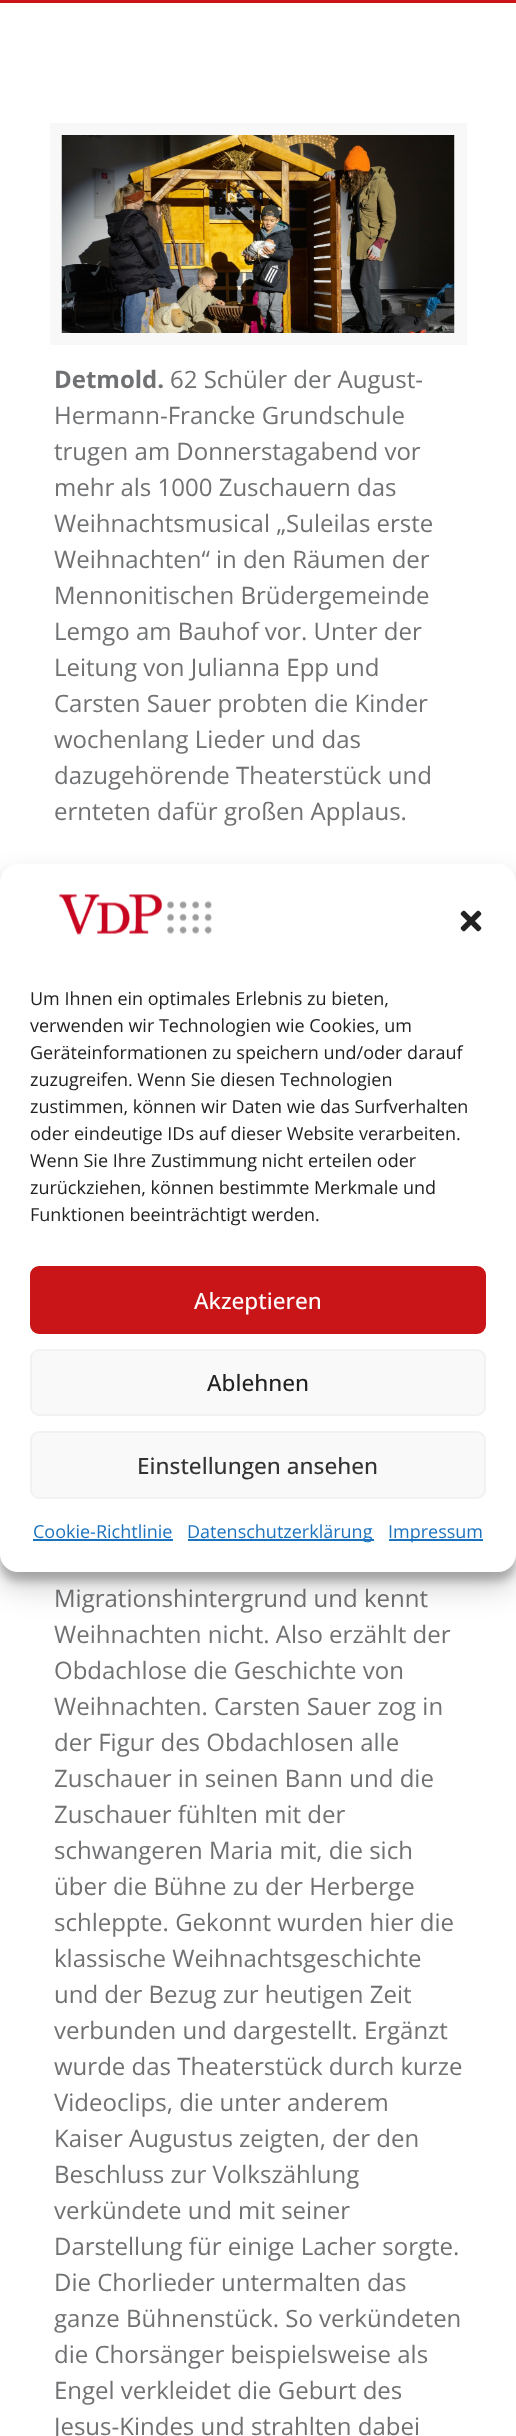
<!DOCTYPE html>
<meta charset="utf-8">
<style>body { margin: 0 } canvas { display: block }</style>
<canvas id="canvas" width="516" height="2436"></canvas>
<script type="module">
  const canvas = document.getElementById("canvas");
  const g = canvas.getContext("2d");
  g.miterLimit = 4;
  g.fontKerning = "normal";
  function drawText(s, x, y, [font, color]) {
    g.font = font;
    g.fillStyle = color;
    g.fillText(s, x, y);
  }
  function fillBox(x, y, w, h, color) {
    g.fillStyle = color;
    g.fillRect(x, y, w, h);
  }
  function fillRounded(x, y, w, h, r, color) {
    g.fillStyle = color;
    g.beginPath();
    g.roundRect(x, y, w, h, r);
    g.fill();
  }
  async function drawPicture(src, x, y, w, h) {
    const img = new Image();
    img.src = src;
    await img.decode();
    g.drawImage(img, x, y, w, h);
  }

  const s1 = ["bold 24px Open Sans", "#707173"];
  const s2 = ["24px Open Sans", "#707173"];
  const s3 = ["18px Open Sans", "#222222"];
  const s4 = ["500 22.5px Open Sans", "#FFFFFF"];
  const s5 = ["500 22.5px Open Sans", "#222222"];
  const s6 = ["500 22.5px Open Sans", "#333333"];
  const s7 = ["18px Open Sans", "#1E73BE"];

  fillBox(0, 0, 516, 2436, "#FFFFFF");
  fillBox(0, 0, 516, 3, "#C91517");
  g.strokeStyle = "#F8F8F8";
  g.lineWidth = 12;
  g.strokeRect(56, 129, 405, 210);
  await drawPicture("pic1.png", 61, 135, 394, 198);
  drawText("Detmold.", 54, 388, s1);
  drawText("62 Schüler der August-", 170, 388, s2);
  drawText("Hermann-Francke Grundschule", 54, 424, s2);
  drawText("trugen am Donnerstagabend vor", 54, 460, s2);
  drawText("mehr als 1000 Zuschauern das", 54, 496, s2);
  drawText("Weihnachtsmusical „Suleilas erste", 54, 532, s2);
  drawText("Weihnachten“ in den Räumen der", 54, 568, s2);
  drawText("Mennonitischen Brüdergemeinde", 54, 604, s2);
  drawText("Lemgo am Bauhof vor. Unter der", 54, 640, s2);
  drawText("Leitung von Julianna Epp und", 54, 676, s2);
  drawText("Carsten Sauer probten die Kinder", 54, 712, s2);
  drawText("wochenlang Lieder und das", 54, 748, s2);
  drawText("dazugehörende Theaterstück und", 54, 784, s2);
  drawText("ernteten dafür großen Applaus.", 54, 820, s2);
  drawText("Migrationshintergrund und kennt", 54, 1607, s2);
  drawText("Weihnachten nicht. Also erzählt der", 54, 1643, s2);
  drawText("Obdachlose die Geschichte von", 54, 1679, s2);
  drawText("Weihnachten. Carsten Sauer zog in", 54, 1715, s2);
  drawText("der Figur des Obdachlosen alle", 54, 1751, s2);
  drawText("Zuschauer in seinen Bann und die", 54, 1787, s2);
  drawText("Zuschauer fühlten mit der", 54, 1823, s2);
  drawText("schwangeren Maria mit, die sich", 54, 1859, s2);
  drawText("über die Bühne zu der Herberge", 54, 1895, s2);
  drawText("schleppte. Gekonnt wurden hier die", 54, 1931, s2);
  drawText("klassische Weihnachtsgeschichte", 54, 1967, s2);
  drawText("und der Bezug zur heutigen Zeit", 54, 2003, s2);
  drawText("verbunden und dargestellt. Ergänzt", 54, 2039, s2);
  drawText("wurde das Theaterstück durch kurze", 54, 2075, s2);
  drawText("Videoclips, die unter anderem", 54, 2111, s2);
  drawText("Kaiser Augustus zeigten, der den", 54, 2147, s2);
  drawText("Beschluss zur Volkszählung", 54, 2183, s2);
  drawText("verkündete und mit seiner", 54, 2219, s2);
  drawText("Darstellung für einige Lacher sorgte.", 54, 2255, s2);
  drawText("Die Chorlieder untermalten das", 54, 2291, s2);
  drawText("ganze Bühnenstück. So verkündeten", 54, 2327, s2);
  drawText("die Chorsänger beispielsweise als", 54, 2363, s2);
  drawText("Engel verkleidet die Geburt des", 54, 2399, s2);
  drawText("Jesus-Kindes und strahlten dabei", 54, 2435, s2);
  g.fillStyle = "rgba(0, 0, 0, 0.23)";
  g.filter = "blur(4.5px)";
  g.beginPath();
  g.roundRect(0, 873, 516, 708, 18);
  g.fill();
  g.filter = "none";
  g.fillStyle = "rgba(0, 0, 0, 0.19)";
  g.filter = "blur(15px)";
  g.beginPath();
  g.roundRect(0, 879, 516, 708, 18);
  g.fill();
  g.filter = "none";
  fillRounded(0, 864, 516, 708, 18, "#FFFFFF");
  await drawPicture("pic2.png", 59, 894, 153, 41);
  await drawPicture("pic3.png", 460, 910, 22, 22);
  drawText("Um Ihnen ein optimales Erlebnis zu bieten,", 30, 1005, s3);
  drawText("verwenden wir Technologien wie Cookies, um", 30, 1032, s3);
  drawText("Geräteinformationen zu speichern und/oder darauf", 30, 1059, s3);
  drawText("zuzugreifen. Wenn Sie diesen Technologien", 30, 1086, s3);
  drawText("zustimmen, können wir Daten wie das Surfverhalten", 30, 1113, s3);
  drawText("oder eindeutige IDs auf dieser Website verarbeiten.", 30, 1140, s3);
  drawText("Wenn Sie Ihre Zustimmung nicht erteilen oder", 30, 1167, s3);
  drawText("zurückziehen, können bestimmte Merkmale und", 30, 1194, s3);
  drawText("Funktionen beeinträchtigt werden.", 30, 1221, s3);
  g.fillStyle = "#C91517";
  g.beginPath();
  g.roundRect(31, 1267, 454, 66, 8);
  g.fill();
  g.strokeStyle = "#C91517";
  g.lineWidth = 2;
  g.stroke();
  drawText("Akzeptieren", 194, 1309, s4);
  g.fillStyle = "#F9F9F9";
  g.beginPath();
  g.roundRect(31, 1350, 454, 65, 8);
  g.fill();
  g.strokeStyle = "#F2F2F2";
  g.stroke();
  drawText("Ablehnen", 207, 1391, s5);
  g.fillStyle = "#F9F9F9";
  g.beginPath();
  g.roundRect(31, 1432, 454, 66, 8);
  g.fill();
  g.stroke();
  drawText("Einstellungen ansehen", 137, 1474, s6);
  drawText("Cookie-Richtlinie", 33, 1538, s7);
  fillBox(33, 1539, 140, 2, "#1E73BE");
  fillBox(188, 1539, 186, 2, "#1E73BE");
  drawText("Datenschutzerklärung", 187, 1538, s7);
  fillBox(389, 1539, 94, 2, "#1E73BE");
  drawText("Impressum", 388, 1538, s7);
</script>
